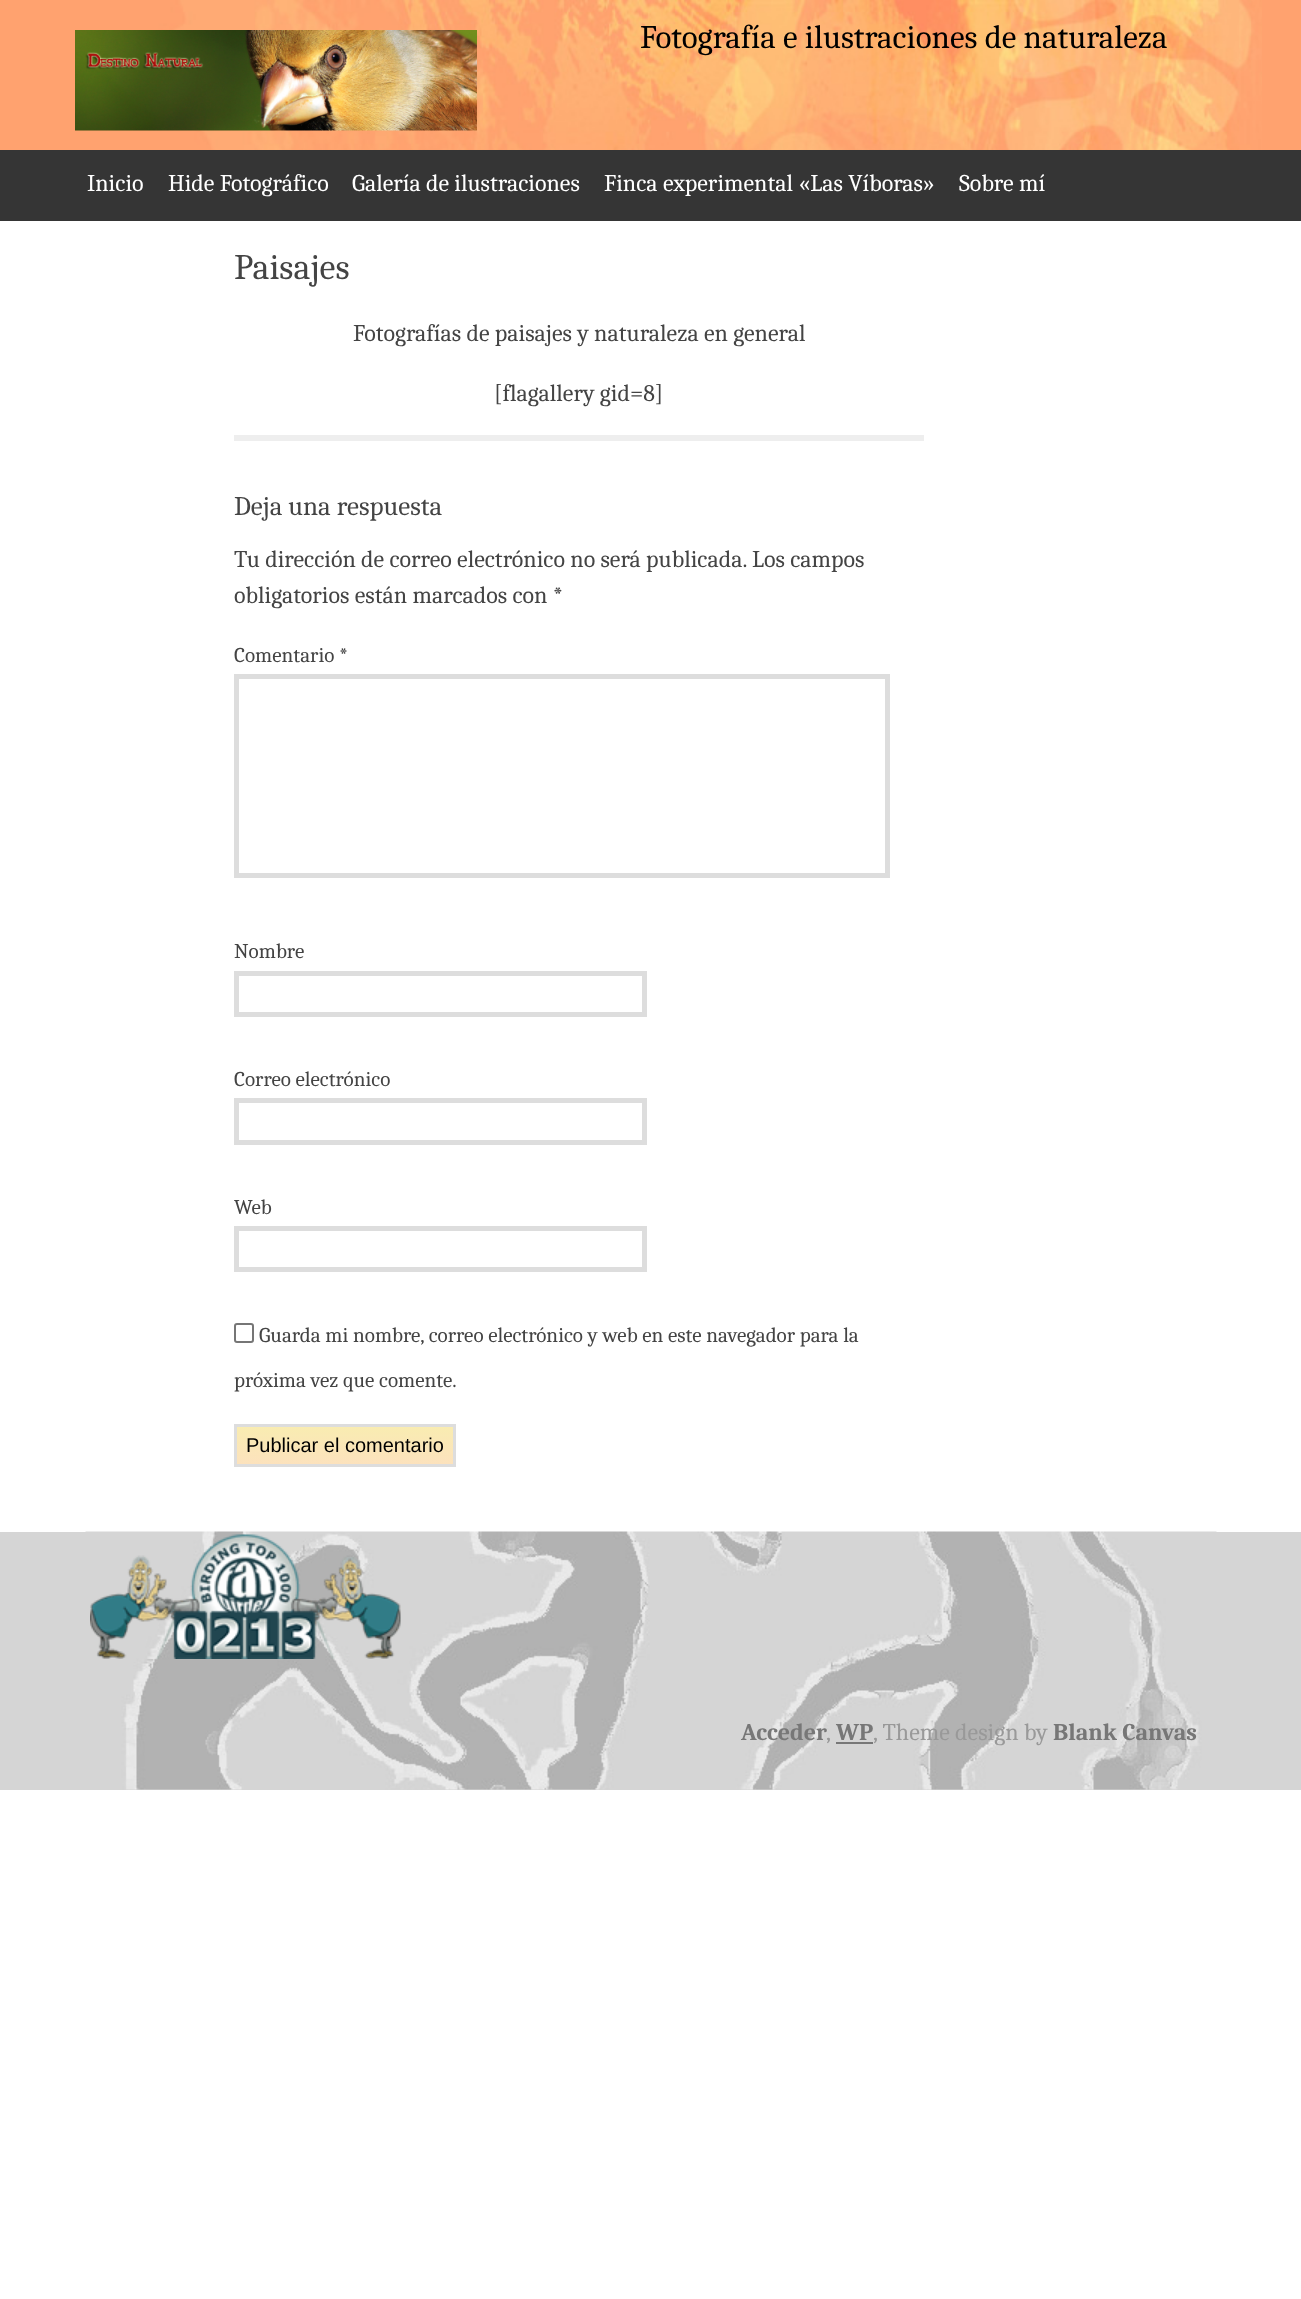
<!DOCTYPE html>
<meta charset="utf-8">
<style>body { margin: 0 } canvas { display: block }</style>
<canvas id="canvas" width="1301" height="2299"></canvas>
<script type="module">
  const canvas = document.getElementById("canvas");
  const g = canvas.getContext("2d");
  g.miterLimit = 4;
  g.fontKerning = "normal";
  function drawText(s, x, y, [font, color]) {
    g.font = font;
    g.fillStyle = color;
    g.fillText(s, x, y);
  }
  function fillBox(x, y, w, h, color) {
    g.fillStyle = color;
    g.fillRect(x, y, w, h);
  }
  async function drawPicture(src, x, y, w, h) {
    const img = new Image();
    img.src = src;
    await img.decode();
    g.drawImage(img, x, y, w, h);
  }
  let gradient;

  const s1 = ["33px Caladea", "#000000"];
  const s2 = ["24px Caladea", "#FFFFFF"];
  const s3 = ["36px Caladea", "#444444"];
  const s4 = ["24px Caladea", "#444444"];
  const s5 = ["27px Caladea", "#444444"];
  const s6 = ["21.1px Caladea", "#444444"];
  const s7 = ["20px Liberation Sans", "#000000"];
  const s8 = ["bold 24px Caladea", "#777777"];
  const s9 = ["24px Caladea", "#999999"];

  fillBox(0, 0, 1301, 2299, "#FFFFFF");
  fillBox(0, 0, 1301, 150, "#FFA26F");
  await drawPicture("pic1.png", 148, 0, 1114, 150);
  await drawPicture("pic2.png", 75, 30, 402, 101);
  drawText("Fotografía e ilustraciones de naturaleza", 640, 48, s1);
  fillBox(0, 150, 1301, 71, "#353535");
  drawText("Inicio", 87, 191, s2);
  drawText("Hide Fotográfico", 168, 191, s2);
  drawText("Galería de ilustraciones", 352, 191, s2);
  drawText("Finca experimental «Las Víboras»", 604, 191, s2);
  drawText("Sobre mí", 959, 191, s2);
  fillBox(234, 435, 690, 6, "#EEEEEE");
  drawText("Paisajes", 234, 279, s3);
  drawText("Fotografías de paisajes y naturaleza en general", 353, 341, s4);
  drawText("[flagallery gid=8]", 494, 401, s4);
  drawText("Deja una respuesta", 234, 515, s5);
  drawText("Tu dirección de correo electrónico no será publicada. Los campos", 234, 567, s4);
  drawText("obligatorios están marcados con *", 234, 603, s4);
  drawText("Comentario *", 234, 662, s6);
  g.strokeStyle = "#DDDDDD";
  g.lineWidth = 5;
  g.strokeRect(236.5, 676.5, 651, 199);
  drawText("Nombre", 234, 958, s6);
  g.strokeRect(236.5, 973.5, 408, 41);
  drawText("Correo electrónico", 234, 1086, s6);
  g.strokeRect(236.5, 1100.5, 408, 42);
  drawText("Web", 234, 1214, s6);
  g.strokeRect(236.5, 1228.5, 408, 41);
  g.beginPath();
  g.roundRect(235, 1324, 18, 18, 2);
  g.strokeStyle = "#767676";
  g.lineWidth = 2;
  g.stroke();
  drawText("Guarda mi nombre, correo electrónico y web en este navegador para la", 259, 1342, s6);
  drawText("próxima vez que comente.", 234, 1387, s6);
  gradient = g.createLinearGradient(345, 1427, 345, 1464);
  gradient.addColorStop(0, "#F9ECB1");
  gradient.addColorStop(1, "#FCE2BD");
  g.fillStyle = gradient;
  g.fillRect(237, 1427, 216, 37);
  g.strokeStyle = "#DDDDDD";
  g.lineWidth = 3;
  g.strokeRect(235.5, 1425.5, 219, 40);
  drawText("Publicar el comentario", 246, 1452, s7);
  fillBox(0, 1532, 1301, 258, "#D5D5D5");
  await drawPicture("pic3.png", 85, 1531, 1132, 259);
  await drawPicture("pic4.png", 90, 1534, 311, 125);
  drawText("Acceder", 741, 1740, s8);
  drawText(",", 826, 1740, s9);
  drawText("WP", 836, 1740, s8);
  drawText(", Theme design by", 873, 1740, s9);
  fillBox(836, 1742, 37, 2, "#777777");
  drawText("Blank Canvas", 1053, 1740, s8);
</script>
